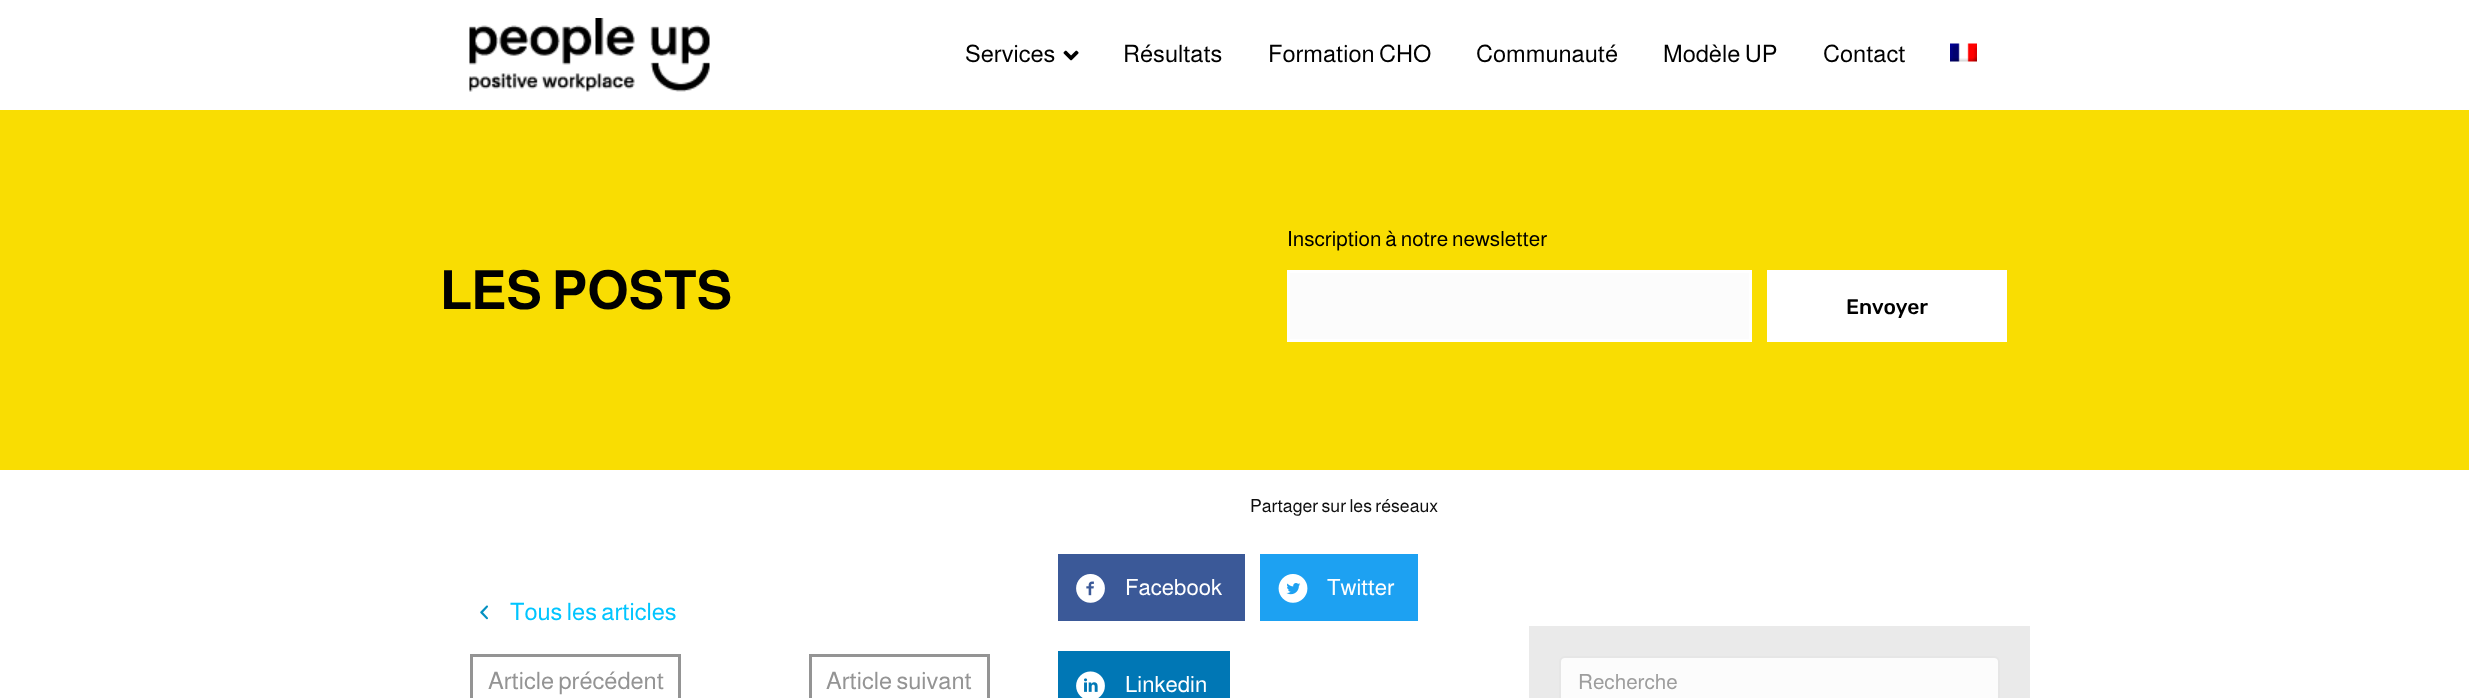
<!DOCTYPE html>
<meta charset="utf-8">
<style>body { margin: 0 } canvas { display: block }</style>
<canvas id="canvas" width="2469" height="698"></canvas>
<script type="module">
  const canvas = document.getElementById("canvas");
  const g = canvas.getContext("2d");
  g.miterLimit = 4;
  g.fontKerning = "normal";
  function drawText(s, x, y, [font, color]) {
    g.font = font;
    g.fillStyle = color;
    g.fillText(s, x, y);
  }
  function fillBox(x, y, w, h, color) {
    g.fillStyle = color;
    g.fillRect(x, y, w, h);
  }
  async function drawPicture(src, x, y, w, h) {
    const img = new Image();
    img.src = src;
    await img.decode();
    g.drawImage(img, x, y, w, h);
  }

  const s1 = ["24px Almarai", "#000000"];
  const s2 = ["bold 54px Almarai", "#000000"];
  const s3 = ["21px Almarai", "#000000"];
  const s4 = ["300 21px Rubik", "#000000"];
  const s5 = ["24px Almarai", "#00C5FF"];
  const s6 = ["24px Almarai", "#949494"];
  const s7 = ["18px Almarai", "#0F0F0F"];
  const s8 = ["22.5px Almarai", "#FFFFFF"];
  const s9 = ["21px Almarai", "#9D9D9D"];

  fillBox(0, 0, 2469, 698, "#FFFFFF");
  await drawPicture("pic1.png", 469, 18, 241, 74);
  drawText("Services", 965, 62, s1);
  await drawPicture("pic2.png", 1063, 50, 16, 11);
  drawText("Résultats", 1123, 62, s1);
  drawText("Formation CHO", 1268, 62, s1);
  drawText("Communauté", 1476, 62, s1);
  drawText("Modèle UP", 1663, 62, s1);
  drawText("Contact", 1823, 62, s1);
  await drawPicture("pic3.png", 1950, 43, 27, 19);
  fillBox(0, 110, 2469, 360, "#F9DD02");
  drawText("LES POSTS", 440, 309, s2);
  drawText("Inscription à notre newsletter", 1287, 246, s3);
  g.fillStyle = "#FCFCFC";
  g.beginPath();
  g.rect(1288.5, 271.5, 462, 69);
  g.fill();
  g.strokeStyle = "#FFFFFF";
  g.lineWidth = 3;
  g.stroke();
  fillBox(1767, 270, 240, 72, "#FFFFFF");
  drawText("Envoyer", 1846, 314, s4);
  await drawPicture("pic4.png", 480, 605, 8, 15);
  drawText("Tous les articles", 510, 620, s5);
  g.strokeStyle = "#949494";
  g.strokeRect(471.5, 655.5, 208, 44);
  drawText("Article précédent", 488, 689, s6);
  g.strokeRect(810.5, 655.5, 178, 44);
  drawText("Article suivant", 826, 689, s6);
  drawText("Partager sur les réseaux", 1250, 512, s7);
  fillBox(1058, 554, 187, 67, "#3B5998");
  await drawPicture("pic5.png", 1076, 574, 29, 29);
  drawText("Facebook", 1125, 595, s8);
  fillBox(1260, 554, 158, 67, "#1DA1F2");
  await drawPicture("pic6.png", 1278, 574, 30, 29);
  drawText("Twitter", 1327, 595, s8);
  fillBox(1058, 651, 172, 47, "#0077B5");
  await drawPicture("pic7.png", 1076, 671, 29, 27);
  drawText("Linkedin", 1125, 692, s8);
  fillBox(1529, 626, 501, 72, "#EAEAEA");
  g.fillStyle = "#FCFCFC";
  g.beginPath();
  g.roundRect(1560, 657, 439, 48, 5);
  g.fill();
  g.strokeStyle = "#E6E6E6";
  g.lineWidth = 2;
  g.stroke();
  drawText("Recherche", 1578, 689, s9);
</script>
